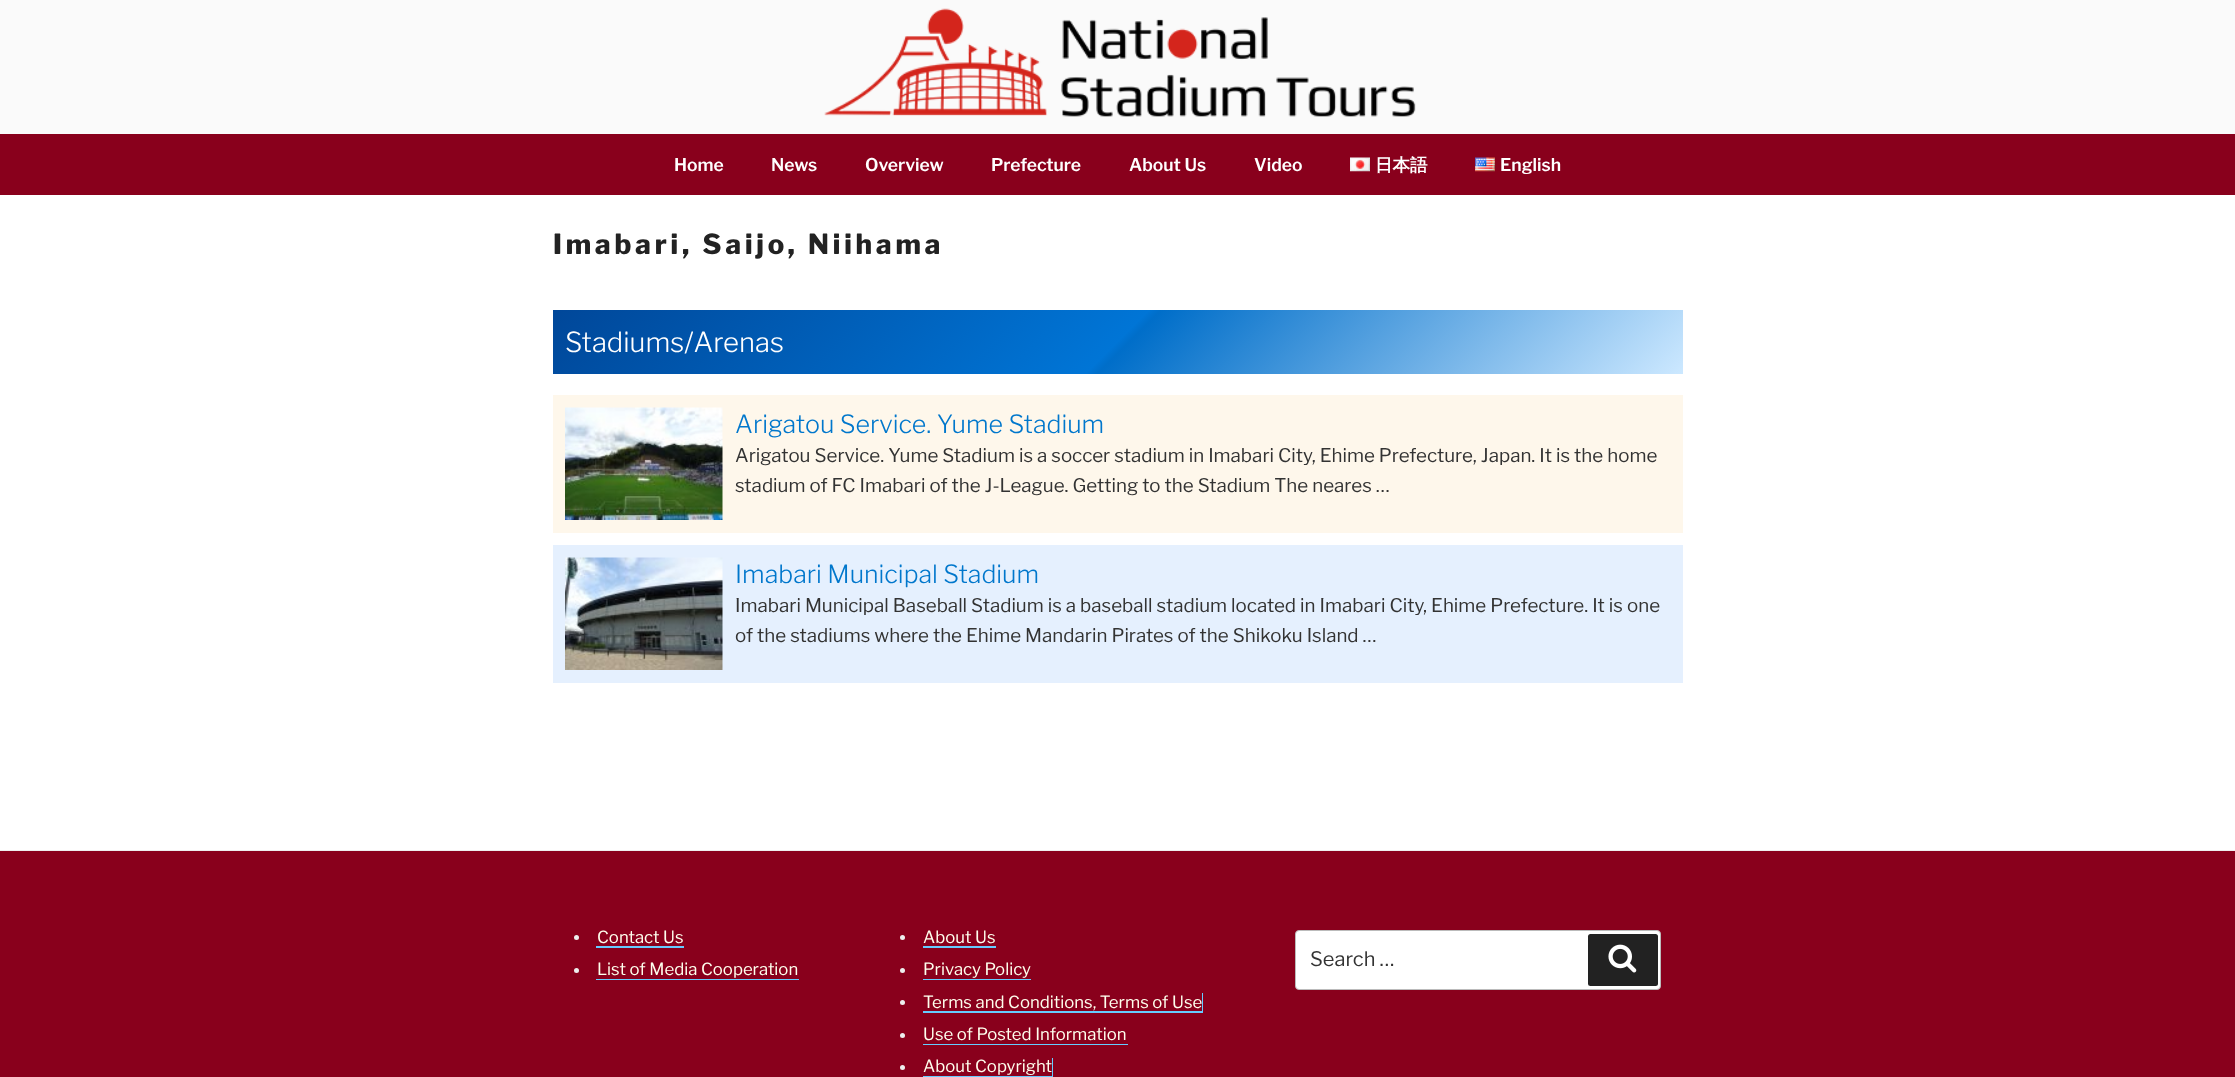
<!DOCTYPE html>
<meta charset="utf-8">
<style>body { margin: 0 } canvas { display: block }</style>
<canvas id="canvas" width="2235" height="1077"></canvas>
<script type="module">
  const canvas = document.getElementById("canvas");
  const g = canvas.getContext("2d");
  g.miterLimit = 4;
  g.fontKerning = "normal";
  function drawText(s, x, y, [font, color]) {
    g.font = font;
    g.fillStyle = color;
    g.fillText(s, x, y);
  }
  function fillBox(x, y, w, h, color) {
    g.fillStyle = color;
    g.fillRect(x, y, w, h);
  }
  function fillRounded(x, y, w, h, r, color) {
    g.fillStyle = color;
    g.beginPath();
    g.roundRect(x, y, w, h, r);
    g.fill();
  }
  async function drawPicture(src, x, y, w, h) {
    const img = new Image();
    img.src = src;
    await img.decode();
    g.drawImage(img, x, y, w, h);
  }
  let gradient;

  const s1 = ["100 17.5px 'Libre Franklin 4'", "#FFFFFF"];
  const s2 = ["bold 17.5px WenQuanYi Zen Hei", "#FFFFFF"];
  const s3 = ["100 27.5px Libre Franklin", "#222222"];
  const s4 = ["100 27.5px 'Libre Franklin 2'", "#FFFFFF"];
  const s5 = ["100 25px 'Libre Franklin 2'", "#0077CC"];
  const s6 = ["100 18.75px 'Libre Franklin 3'", "#333333"];
  const s7 = ["100 16.75px 'Libre Franklin 3'", "#FFFFEE"];
  const s8 = ["100 20px 'Libre Franklin 3'", "#333333"];

  fillBox(0, 0, 2235, 1077, "#FFFFFF");
  fillBox(0, 0, 2235, 134, "#FAFAFA");
  await drawPicture("pic1.png", 824, 8, 592, 109);
  fillBox(0, 134, 2235, 61, "#89001C");
  drawText("Home", 674, 171, s1);
  drawText("News", 771, 171, s1);
  drawText("Overview", 865, 171, s1);
  drawText("Prefecture", 991, 171, s1);
  drawText("About Us", 1129, 171, s1);
  drawText("Video", 1254, 171, s1);
  await drawPicture("pic2.png", 1350, 157, 20, 15);
  drawText("日本語", 1375, 171, s2);
  await drawPicture("pic3.png", 1475, 157, 20, 15);
  drawText("English", 1500, 171, s1);
  g.letterSpacing = "3.85px";
  drawText("Imabari, Saijo, Niihama", 553, 254, s3);
  gradient = g.createLinearGradient(819, 43, 1416, 640);
  gradient.addColorStop(0, "#004799");
  gradient.addColorStop(0.5, "#0075D6");
  gradient.addColorStop(0.51, "#006EC9");
  gradient.addColorStop(1, "#CCE8FF");
  g.fillStyle = gradient;
  g.fillRect(553, 310, 1130, 64);
  g.letterSpacing = "0px";
  drawText("Stadiums/Arenas", 565, 352, s4);
  fillBox(553, 395, 1130, 138, "#FEF7EB");
  await drawPicture("pic4.png", 565, 407, 158, 113);
  drawText("Arigatou Service. Yume Stadium", 735, 433, s5);
  drawText("Arigatou Service. Yume Stadium is a soccer stadium in Imabari City, Ehime Prefecture, Japan. It is the home", 735, 462, s6);
  drawText("stadium of FC Imabari of the J-League. Getting to the Stadium The neares …", 735, 492, s6);
  fillBox(553, 545, 1130, 138, "#E5F0FE");
  await drawPicture("pic5.png", 565, 557, 158, 113);
  drawText("Imabari Municipal Stadium", 735, 583, s5);
  drawText("Imabari Municipal Baseball Stadium is a baseball stadium located in Imabari City, Ehime Prefecture. It is one", 735, 612, s6);
  drawText("of the stadiums where the Ehime Mandarin Pirates of the Shikoku Island …", 735, 642, s6);
  fillBox(0, 851, 2235, 226, "#89001C");
  fillBox(0, 850, 2235, 1, "#EEEEEE");
  g.beginPath();
  g.arc(576.5, 937.5, 2.5, 0, Math.PI * 2);
  g.fill();
  drawText("Contact Us", 597, 943, s7);
  g.fillStyle = "#66CCFF";
  g.beginPath();
  g.moveTo(596, 928);
  g.lineTo(596, 948);
  g.lineTo(684, 948);
  g.lineTo(684, 928);
  g.lineTo(684, 946);
  g.lineTo(596, 946);
  g.closePath();
  g.fill();
  g.fillStyle = "#EEEEEE";
  g.beginPath();
  g.arc(576.5, 970.5, 2.5, 0, Math.PI * 2);
  g.fill();
  drawText("List of Media Cooperation", 597, 975, s7);
  g.fillStyle = "#66CCFF";
  g.beginPath();
  g.moveTo(596, 960);
  g.lineTo(596, 980);
  g.lineTo(799, 980);
  g.lineTo(799, 960);
  g.lineTo(799, 979);
  g.lineTo(596, 979);
  g.closePath();
  g.fill();
  g.fillStyle = "#EEEEEE";
  g.beginPath();
  g.arc(902.5, 937.5, 2.5, 0, Math.PI * 2);
  g.fill();
  drawText("About Us", 923, 943, s7);
  fillBox(923, 946, 73, 2, "#66CCFF");
  g.fillStyle = "#EEEEEE";
  g.beginPath();
  g.arc(902.5, 970.5, 2.5, 0, Math.PI * 2);
  g.fill();
  drawText("Privacy Policy", 923, 975, s7);
  fillBox(923, 979, 108, 1, "#66CCFF");
  g.fillStyle = "#EEEEEE";
  g.beginPath();
  g.arc(902.5, 1002.5, 2.5, 0, Math.PI * 2);
  g.fill();
  g.fillStyle = "#66CCFF";
  g.beginPath();
  g.moveTo(923, 1011);
  g.lineTo(923, 1013);
  g.lineTo(1203, 1013);
  g.lineTo(1203, 993);
  g.lineTo(1202, 993);
  g.lineTo(1202, 1011);
  g.closePath();
  g.fill();
  drawText("Terms and Conditions, Terms of Use", 923, 1008, s7);
  g.fillStyle = "#EEEEEE";
  g.beginPath();
  g.arc(902.5, 1035.5, 2.5, 0, Math.PI * 2);
  g.fill();
  drawText("Use of Posted Information", 923, 1040, s7);
  g.fillStyle = "#66CCFF";
  g.beginPath();
  g.moveTo(923, 1044);
  g.lineTo(923, 1045);
  g.lineTo(1128, 1045);
  g.lineTo(1128, 1025);
  g.lineTo(1128, 1044);
  g.closePath();
  g.fill();
  g.fillStyle = "#EEEEEE";
  g.beginPath();
  g.arc(902.5, 1067.5, 2.5, 0, Math.PI * 2);
  g.fill();
  g.fillStyle = "#66CCFF";
  g.beginPath();
  g.moveTo(923, 1076);
  g.lineTo(923, 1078);
  g.lineTo(1053, 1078);
  g.lineTo(1053, 1058);
  g.lineTo(1052, 1058);
  g.lineTo(1052, 1076);
  g.closePath();
  g.fill();
  drawText("About Copyright", 923, 1072, s7);
  g.fillStyle = "#FFFFFF";
  g.beginPath();
  g.roundRect(1295.5, 930.5, 365, 59, 3.5);
  g.fill();
  g.strokeStyle = "#BBBBBB";
  g.stroke();
  drawText("Search …", 1310, 966, s8);
  fillRounded(1588, 934, 70, 52, 2.5, "#222222");
  await drawPicture("pic6.png", 1608, 944, 29, 29);
</script>
